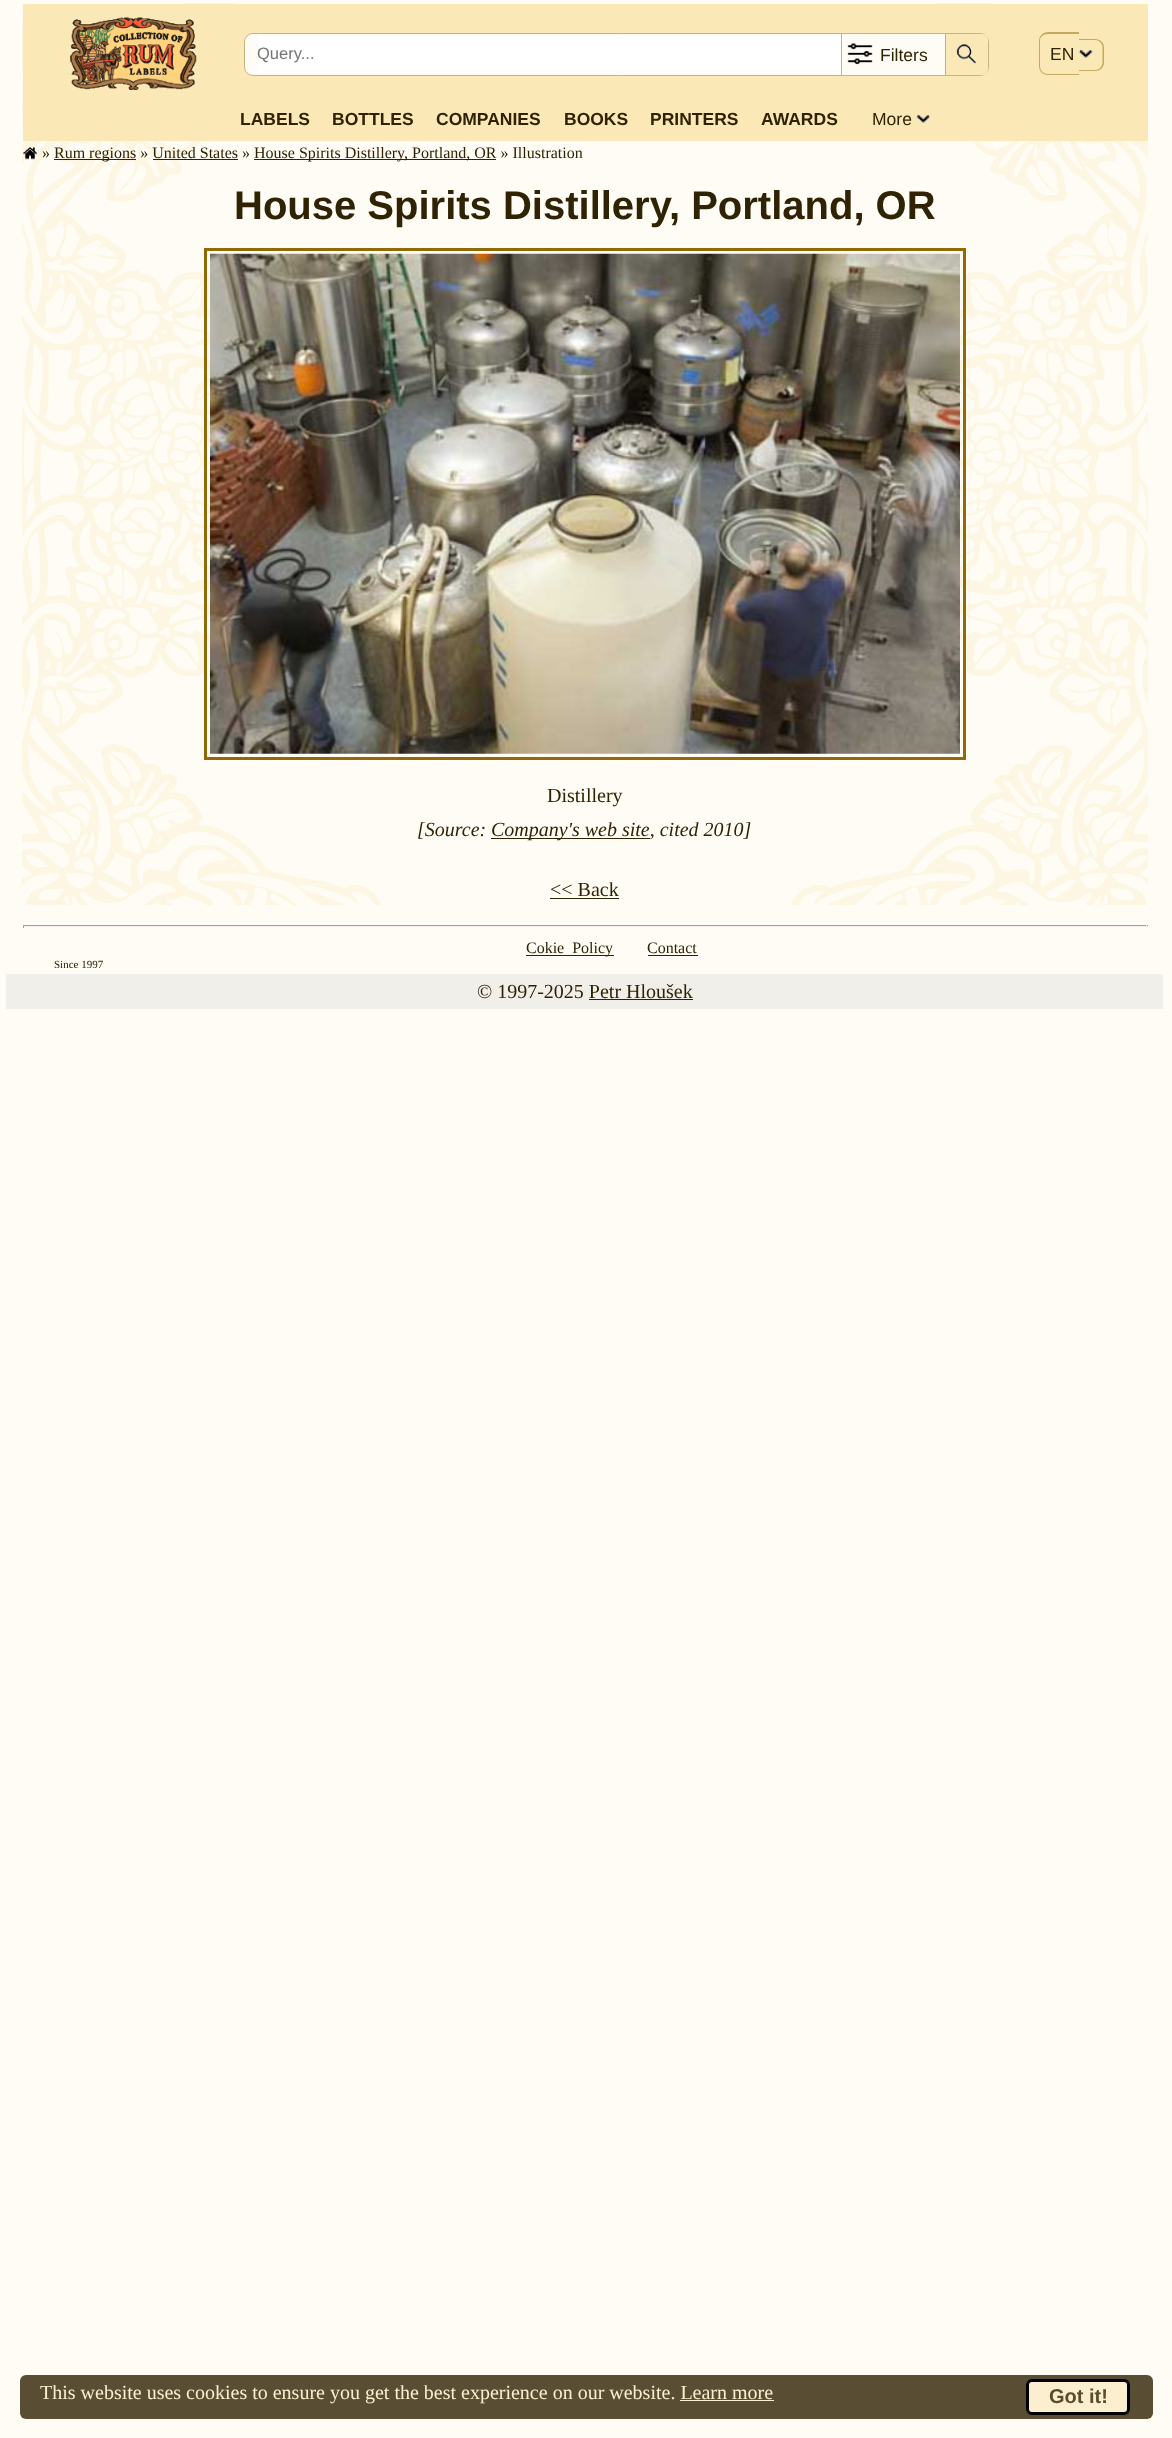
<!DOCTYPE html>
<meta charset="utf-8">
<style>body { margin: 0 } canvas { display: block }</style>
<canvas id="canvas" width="1172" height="2438"></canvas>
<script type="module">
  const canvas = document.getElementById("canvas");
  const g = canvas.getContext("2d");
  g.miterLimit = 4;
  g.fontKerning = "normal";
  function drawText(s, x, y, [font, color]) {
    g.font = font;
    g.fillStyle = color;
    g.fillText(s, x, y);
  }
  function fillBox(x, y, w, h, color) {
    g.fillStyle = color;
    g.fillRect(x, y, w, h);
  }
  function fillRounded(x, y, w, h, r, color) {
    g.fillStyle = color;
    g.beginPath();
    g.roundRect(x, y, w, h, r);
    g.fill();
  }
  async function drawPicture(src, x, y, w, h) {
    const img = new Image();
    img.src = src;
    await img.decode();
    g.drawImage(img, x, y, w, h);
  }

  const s1 = ["16.5px Liberation Sans", "#757575"];
  const s2 = ["17.5px Liberation Sans", "#302303"];
  const s3 = ["bold 17.5px Liberation Sans", "#302303"];
  const s4 = ["16px Liberation Serif", "#302303"];
  const s5 = ["bold 40px Liberation Sans", "#302303"];
  const s6 = ["20px Liberation Serif", "#302303"];
  const s7 = ["italic 20px Liberation Serif", "#302303"];
  const s8 = ["11px Liberation Serif", "#302303"];
  const s9 = ["20px Liberation Serif", "#FCEFCF"];
  const s10 = ["bold 20px Liberation Sans", "#594C2C"];

  fillBox(0, 0, 1172, 2438, "#FEFCF5");
  await drawPicture("pic1.png", 22, 3, 1126, 902);
  fillBox(23, 4, 1125, 137, "#FBE8B7");
  await drawPicture("pic2.png", 70, 17, 127, 73);
  fillRounded(244, 33, 745, 43, 9, "#FEFCF5");
  g.beginPath();
  g.roundRect(244.5, 33.5, 744, 42, 8.5);
  g.strokeStyle = "rgba(145, 106, 8, 0.5)";
  g.stroke();
  fillBox(258, 36, 583, 35, "#FFFFFF");
  drawText("Query...", 257, 59, s1);
  fillBox(945, 34, 1, 41, "#C8B37F");
  fillBox(841, 34, 1, 41, "#C8B37F");
  await drawPicture("pic3.png", 847, 43, 26, 22);
  drawText("Filters", 880, 61, s2);
  g.fillStyle = "#FBE8B7";
  g.beginPath();
  g.roundRect(946, 34, 42, 41, [0, 6, 6, 0]);
  g.fill();
  await drawPicture("pic4.png", 956, 44, 20, 20);
  g.fillStyle = "#C6A960";
  g.beginPath();
  g.moveTo(1048, 32);
  g.lineTo(1079, 32);
  g.lineTo(1079, 75);
  g.lineTo(1048, 75);
  g.bezierCurveTo(1043, 75, 1039, 71, 1039, 66);
  g.lineTo(1039, 41);
  g.bezierCurveTo(1039, 36, 1043, 32, 1048, 32);
  g.closePath();
  g.moveTo(1048, 34);
  g.lineTo(1079, 34);
  g.lineTo(1079, 74);
  g.lineTo(1048, 74);
  g.bezierCurveTo(1043, 74, 1040, 70, 1040, 66);
  g.lineTo(1040, 41);
  g.bezierCurveTo(1040, 37, 1043, 34, 1048, 34);
  g.closePath();
  g.fill("evenodd");
  drawText("EN", 1050, 60, s2);
  g.fillStyle = "#C6A960";
  g.beginPath();
  g.moveTo(1079, 39);
  g.lineTo(1095, 39);
  g.bezierCurveTo(1100, 39, 1104, 42.5, 1104, 47.5);
  g.lineTo(1104, 62.5);
  g.bezierCurveTo(1104, 67.5, 1100, 71, 1095, 71);
  g.lineTo(1079, 71);
  g.closePath();
  g.moveTo(1079, 40);
  g.lineTo(1095, 40);
  g.bezierCurveTo(1099, 40, 1102.5, 43.5, 1102.5, 47.5);
  g.lineTo(1102.5, 62.5);
  g.bezierCurveTo(1102.5, 66.5, 1099, 70, 1095, 70);
  g.lineTo(1079, 70);
  g.closePath();
  g.fill("evenodd");
  await drawPicture("pic5.png", 1078, 50, 15, 8);
  drawText("LABELS", 240, 125, s3);
  drawText("BOTTLES", 332, 125, s3);
  drawText("COMPANIES", 436, 125, s3);
  drawText("BOOKS", 564, 125, s3);
  drawText("PRINTERS", 650, 125, s3);
  drawText("AWARDS", 761, 125, s3);
  drawText("More", 872, 125, s2);
  await drawPicture("pic6.png", 916, 115, 14, 8);
  await drawPicture("pic7.png", 23, 147, 14, 13);
  drawText("»", 42, 158, s4);
  fillBox(54, 159, 82, 1, "#302303");
  drawText("Rum regions » United States »", 54, 158, s4);
  fillBox(254, 159, 242, 1, "#302303");
  drawText("House Spirits Distillery, Portland, OR » Illustration", 254, 158, s4);
  fillBox(153, 159, 85, 1, "#302303");
  drawText("House Spirits Distillery, Portland, OR", 234, 219, s5);
  g.strokeStyle = "#916A08";
  g.lineWidth = 3;
  g.strokeRect(205.5, 249.5, 759, 509);
  await drawPicture("pic8.png", 210, 253, 750, 501);
  drawText("Distillery", 547, 802, s6);
  drawText("[Source:", 417, 836, s7);
  fillBox(491, 838, 159, 1, "#302303");
  drawText("Company's web site, cited 2010]", 491, 836, s7);
  drawText("<< Back", 550, 896, s6);
  fillBox(550, 898, 69, 1, "#302303");
  fillBox(23, 925, 1125, 1, "#9F9F9F");
  fillBox(1146, 925, 1, 3, "#EEEEEE");
  fillBox(23, 926, 1125, 1, "#EEEEEE");
  fillBox(23, 925, 1, 3, "#9F9F9F");
  fillBox(526, 955, 88, 1, "#302303");
  drawText("Cokie  Policy", 526, 953, s4);
  drawText("Contact", 647, 953, s4);
  fillBox(648, 955, 50, 1, "#302303");
  drawText("Since 1997", 54, 968, s8);
  fillBox(6, 974, 1157, 35, "#F1EFE9");
  drawText("© 1997-2025 Petr Hloušek", 477, 998, s6);
  fillBox(589, 999, 104, 1, "#302303");
  fillRounded(20, 2375, 1133, 44, 6, "#594E33");
  drawText("This website uses cookies to ensure you get the best experience on our website. Learn more", 40, 2399, s9);
  fillBox(680, 2400, 94, 1, "#FCEFCF");
  g.beginPath();
  g.roundRect(1027.5, 2380.5, 101, 33, 4.5);
  g.fill();
  g.strokeStyle = "#000000";
  g.stroke();
  drawText("Got it!", 1049, 2403, s10);
</script>
